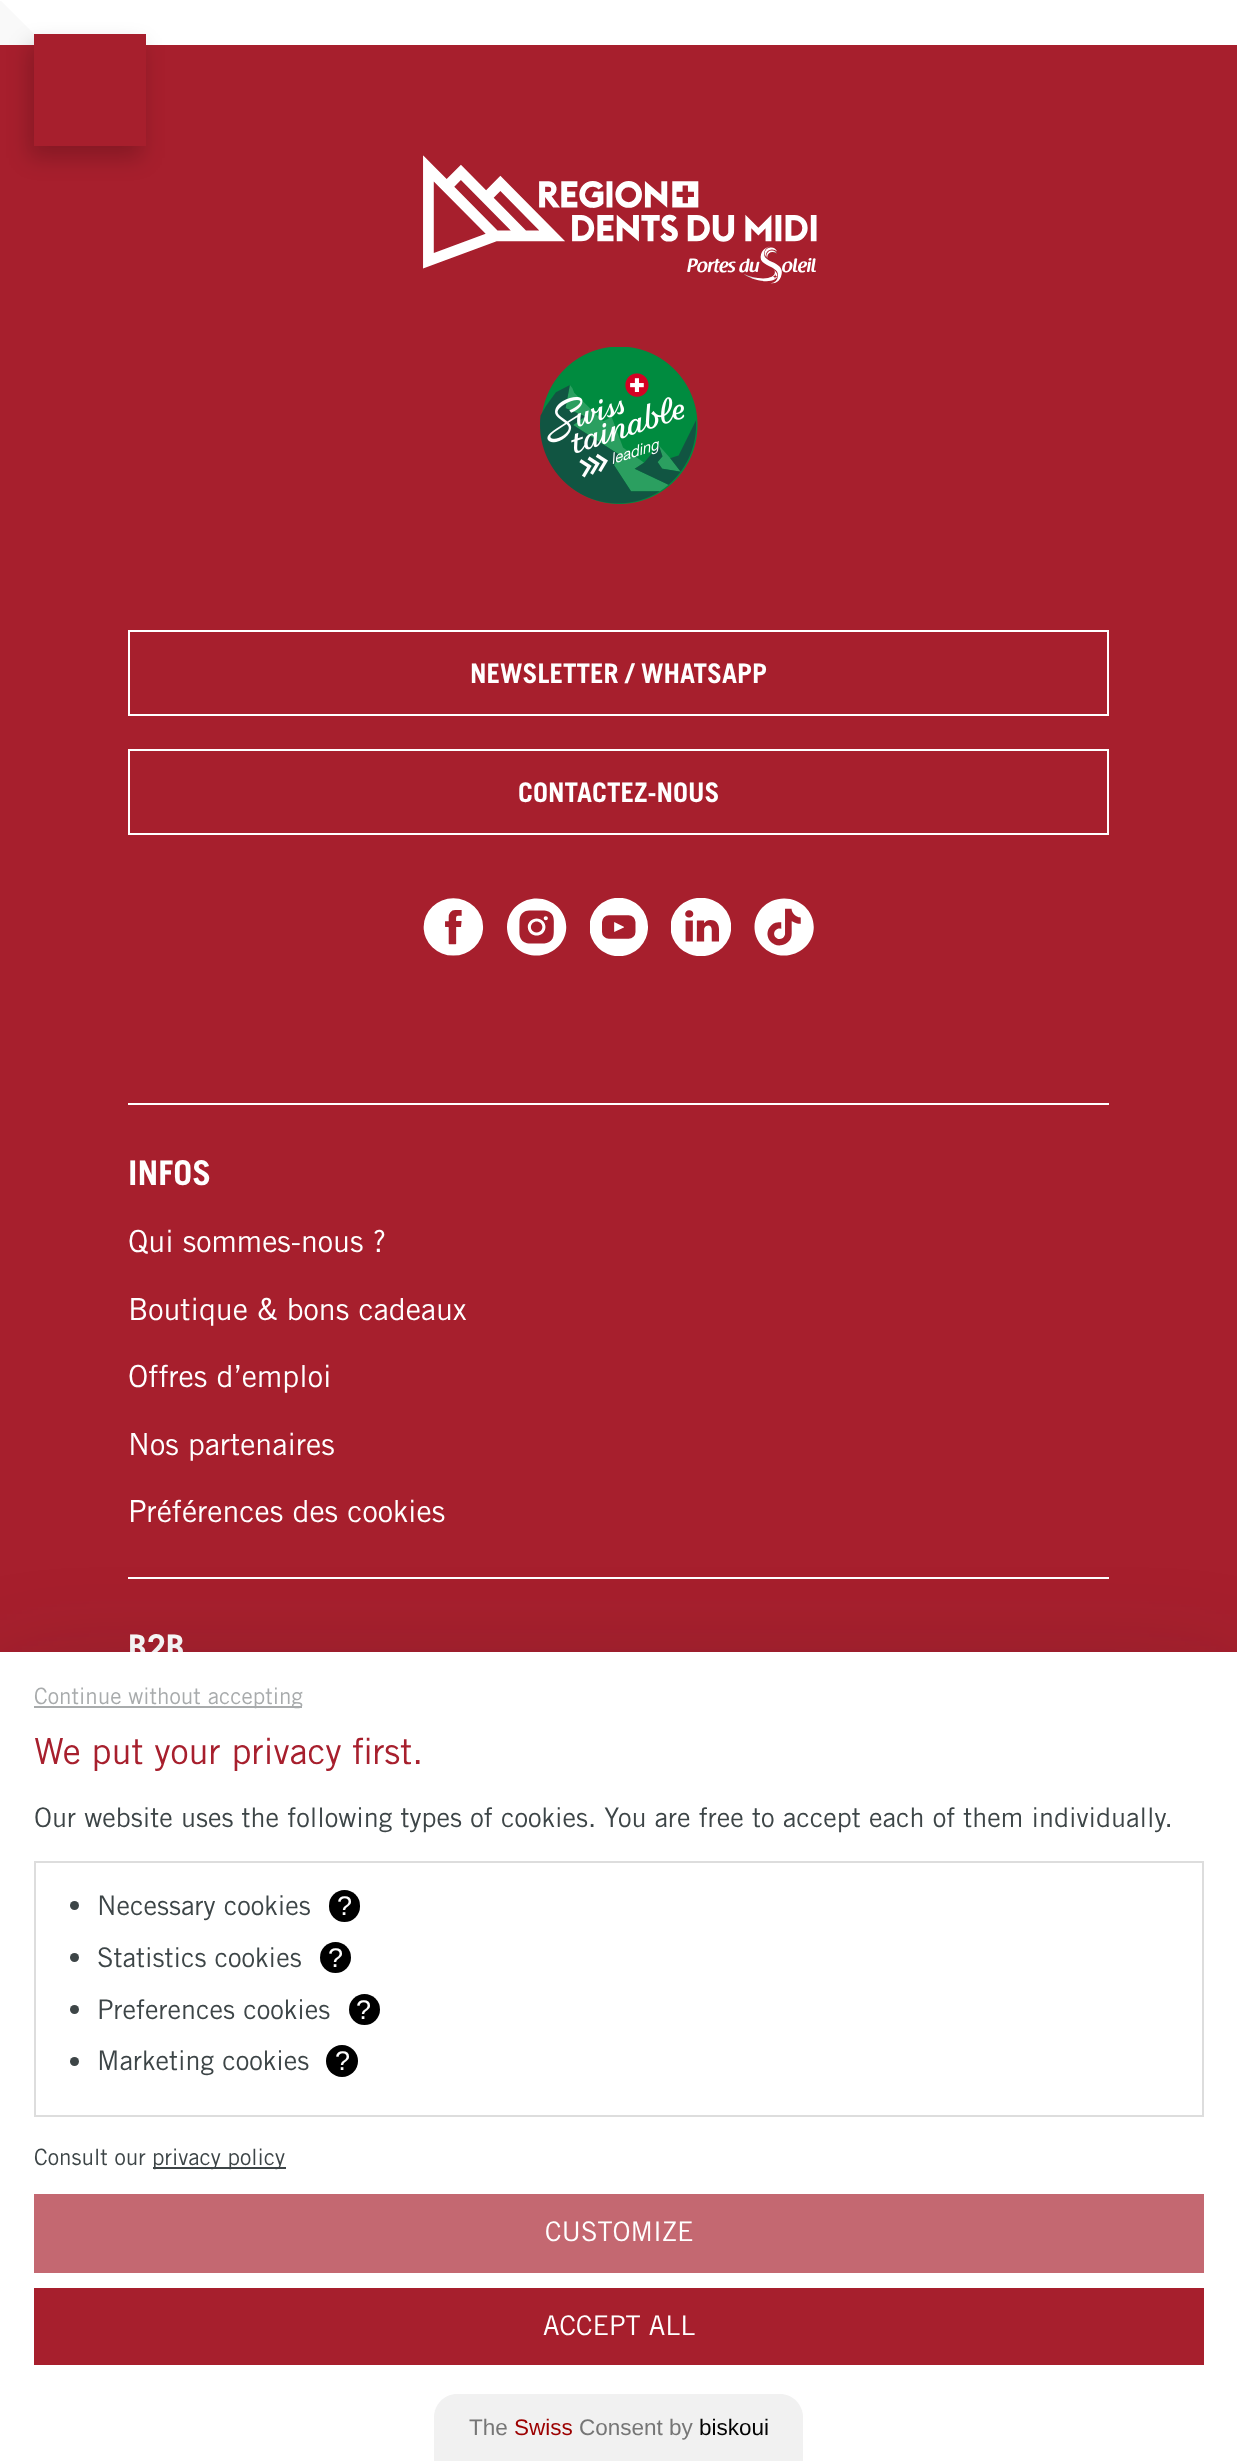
<!DOCTYPE html>
<meta charset="utf-8">
<style>body { margin: 0 } canvas { display: block }</style>
<canvas id="canvas" width="1237" height="2461"></canvas>
<script type="module">
  const canvas = document.getElementById("canvas");
  const g = canvas.getContext("2d");
  g.miterLimit = 4;
  g.fontKerning = "normal";
  function drawText(s, x, y, [font, color]) {
    g.font = font;
    g.fillStyle = color;
    g.fillText(s, x, y);
  }
  function fillBox(x, y, w, h, color) {
    g.fillStyle = color;
    g.fillRect(x, y, w, h);
  }
  function fillRounded(x, y, w, h, r, color) {
    g.fillStyle = color;
    g.beginPath();
    g.roundRect(x, y, w, h, r);
    g.fill();
  }
  async function drawPicture(src, x, y, w, h) {
    const img = new Image();
    img.src = src;
    await img.decode();
    g.drawImage(img, x, y, w, h);
  }

  const s1 = ["bold 27px Trade Gothic", "#FFFFFF"];
  const s2 = ["bold 34px Trade Gothic", "#FFFFFF"];
  const s3 = ["30.4px Trade Gothic", "#FFFFFF"];
  const s4 = ["22.5px Trade Gothic", "#A8ABAC"];
  const s5 = ["36px Trade Gothic", "#A71F2D"];
  const s6 = ["27px Trade Gothic", "#3D4547"];
  const s7 = ["27px Liberation Sans", "#FFFFFF"];
  const s8 = ["22.5px Trade Gothic", "#3D4547"];
  const s9 = ["27px Trade Gothic", "#FFFFFF"];
  const s10 = ["22.5px Liberation Sans", "#767676"];
  const s11 = ["22.5px Liberation Sans", "#9C0000"];
  const s12 = ["22.5px Liberation Sans", "#030303"];

  fillBox(0, 0, 1237, 2461, "#FFFFFF");
  await drawPicture("pic1.png", 0, 1, 34, 44);
  fillBox(0, 45, 1237, 1607, "#A71F2D");
  g.fillStyle = "rgba(0, 0, 0, 0.2)";
  g.filter = "blur(11px)";
  g.beginPath();
  g.rect(29, 45, 113, 113);
  g.fill();
  g.filter = "none";
  fillBox(34, 34, 112, 112, "#A71F2D");
  await drawPicture("pic2.png", 423, 155, 394, 129);
  await drawPicture("pic3.png", 540, 347, 158, 157);
  g.strokeStyle = "#FFFFFF";
  g.lineWidth = 2;
  g.strokeRect(129, 631, 979, 84);
  drawText("NEWSLETTER / WHATSAPP", 470, 683, s1);
  g.strokeRect(129, 750, 979, 84);
  drawText("CONTACTEZ-NOUS", 518, 802, s1);
  await drawPicture("pic4.png", 423, 898, 61, 58);
  await drawPicture("pic5.png", 507, 898, 60, 58);
  await drawPicture("pic6.png", 590, 898, 58, 58);
  await drawPicture("pic7.png", 671, 898, 60, 58);
  await drawPicture("pic8.png", 754, 898, 60, 58);
  fillBox(128, 1103, 981, 2, "#FFFFFF");
  drawText("INFOS", 128, 1185, s2);
  drawText("Qui sommes-nous ?", 128, 1252, s3);
  drawText("Boutique & bons cadeaux", 128, 1320, s3);
  drawText("Offres d’emploi", 128, 1387, s3);
  drawText("Nos partenaires", 128, 1455, s3);
  drawText("Préférences des cookies", 128, 1522, s3);
  fillBox(128, 1577, 981, 2, "#FFFFFF");
  drawText("B2B", 128, 1659, s2);
  g.fillStyle = "rgba(33, 37, 41, 0.28)";
  g.filter = "blur(57px)";
  g.beginPath();
  g.rect(0, 1690, 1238, 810);
  g.fill();
  g.filter = "none";
  fillBox(0, 1652, 1237, 809, "#FFFFFF");
  fillBox(34, 1706, 268, 2, "#A8ABAC");
  drawText("Continue without accepting", 34, 1704, s4);
  drawText("We put your privacy first.", 34, 1764, s5);
  drawText("Our website uses the following types of cookies. You are free to accept each of them individually.", 34, 1827, s6);
  g.strokeStyle = "#DDDDDD";
  g.strokeRect(35, 1862, 1168, 254);
  g.beginPath();
  g.arc(74.5, 1905.5, 4.5, 0, Math.PI * 2);
  g.fill();
  drawText("Necessary cookies", 97, 1915, s6);
  fillRounded(329, 1890, 31, 32, 15.5, "#000000");
  drawText("?", 337, 1915, s7);
  g.fillStyle = "#3D4547";
  g.beginPath();
  g.arc(74.5, 1957.5, 4.5, 0, Math.PI * 2);
  g.fill();
  drawText("Statistics cookies", 97, 1967, s6);
  g.fillStyle = "#000000";
  g.beginPath();
  g.arc(335.5, 1957.5, 15.5, 0, Math.PI * 2);
  g.fill();
  drawText("?", 328, 1967, s7);
  g.fillStyle = "#3D4547";
  g.beginPath();
  g.arc(74.5, 2009.5, 4.5, 0, Math.PI * 2);
  g.fill();
  drawText("Preferences cookies", 97, 2019, s6);
  g.fillStyle = "#000000";
  g.beginPath();
  g.arc(364.5, 2009.5, 15.5, 0, Math.PI * 2);
  g.fill();
  drawText("?", 356, 2019, s7);
  g.fillStyle = "#3D4547";
  g.beginPath();
  g.arc(74.5, 2061.5, 4.5, 0, Math.PI * 2);
  g.fill();
  drawText("Marketing cookies", 97, 2070, s6);
  g.fillStyle = "#000000";
  g.beginPath();
  g.arc(342, 2061, 16, 0, Math.PI * 2);
  g.fill();
  drawText("?", 335, 2070, s7);
  drawText("Consult our", 34, 2165, s8);
  fillBox(153, 2167, 133, 2, "#3D4547");
  drawText("privacy policy", 152, 2165, s8);
  fillBox(34, 2194, 1170, 79, "#C46871");
  drawText("CUSTOMIZE", 545, 2241, s9);
  fillBox(34, 2288, 1170, 77, "#A71F2D");
  drawText("ACCEPT ALL", 543, 2335, s9);
  g.fillStyle = "#F1F1F1";
  g.beginPath();
  g.moveTo(457, 2394);
  g.lineTo(780, 2394);
  g.bezierCurveTo(792.5, 2394, 803, 2404.5, 803, 2417);
  g.lineTo(803, 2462);
  g.lineTo(434, 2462);
  g.lineTo(434, 2417);
  g.bezierCurveTo(434, 2404.5, 444.5, 2394, 457, 2394);
  g.closePath();
  g.fill();
  drawText("The", 469, 2435, s10);
  drawText("Swiss", 514, 2435, s11);
  drawText("Consent by", 579, 2435, s10);
  drawText("biskoui", 699, 2435, s12);
</script>
